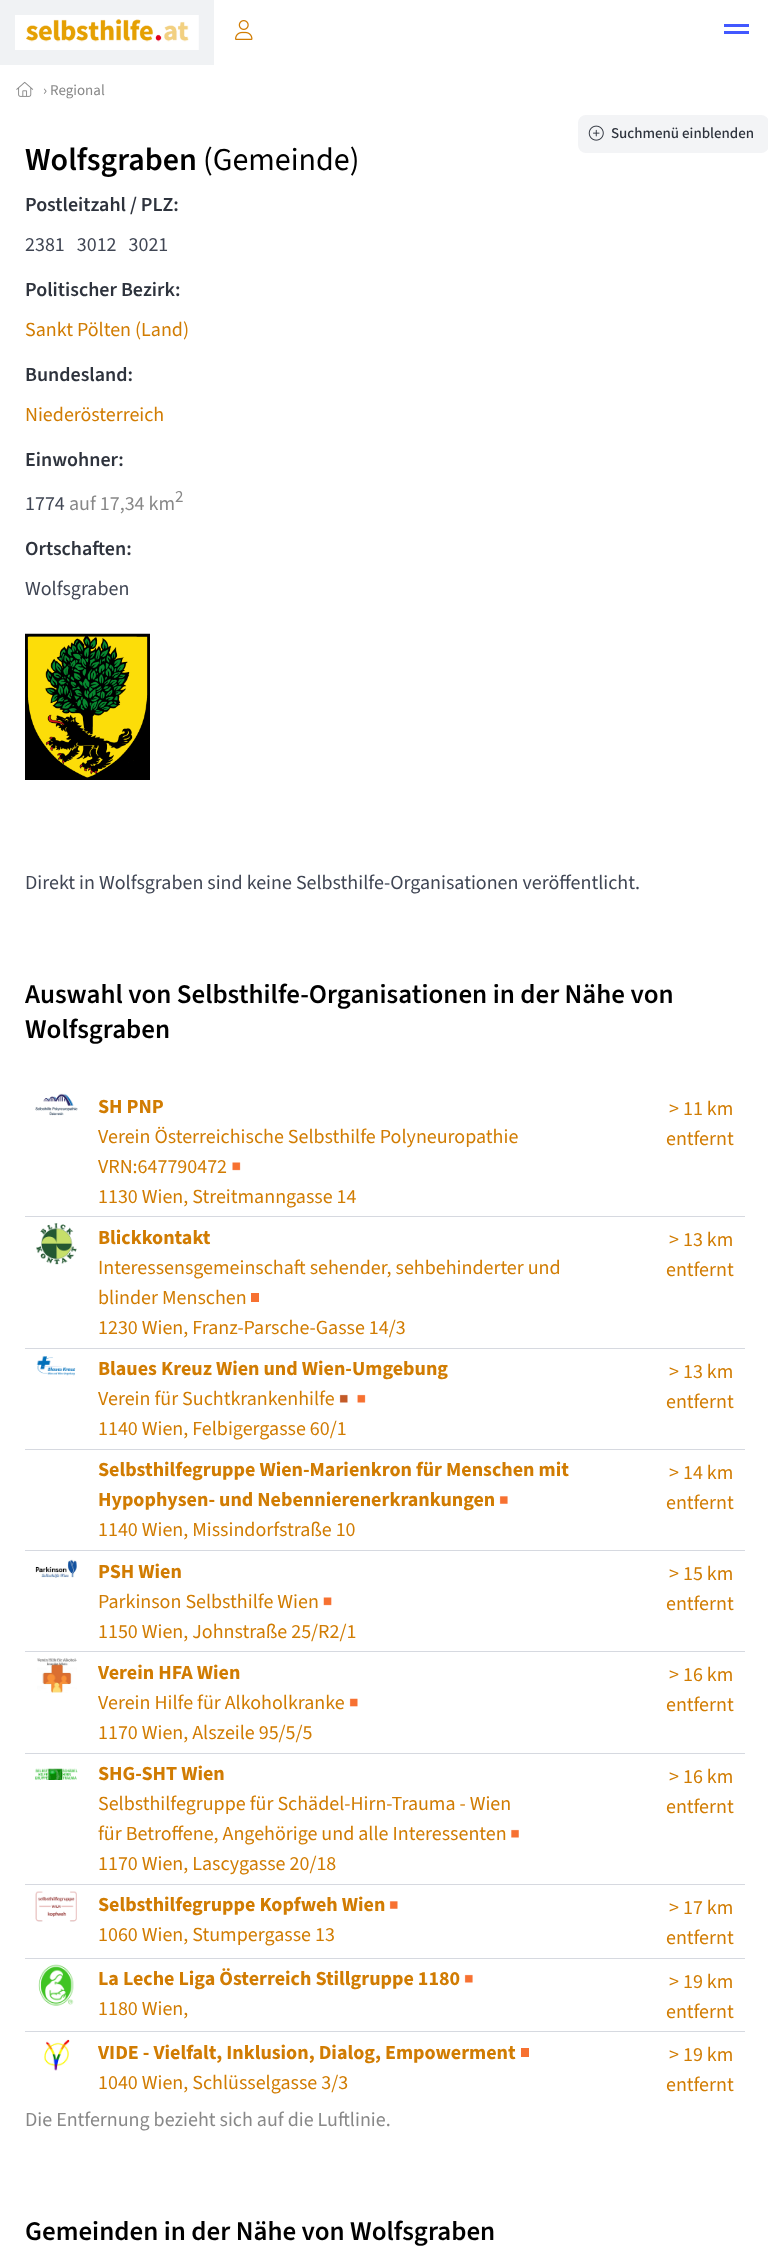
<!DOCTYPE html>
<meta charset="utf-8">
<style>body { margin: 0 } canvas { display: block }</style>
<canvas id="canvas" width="768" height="2246"></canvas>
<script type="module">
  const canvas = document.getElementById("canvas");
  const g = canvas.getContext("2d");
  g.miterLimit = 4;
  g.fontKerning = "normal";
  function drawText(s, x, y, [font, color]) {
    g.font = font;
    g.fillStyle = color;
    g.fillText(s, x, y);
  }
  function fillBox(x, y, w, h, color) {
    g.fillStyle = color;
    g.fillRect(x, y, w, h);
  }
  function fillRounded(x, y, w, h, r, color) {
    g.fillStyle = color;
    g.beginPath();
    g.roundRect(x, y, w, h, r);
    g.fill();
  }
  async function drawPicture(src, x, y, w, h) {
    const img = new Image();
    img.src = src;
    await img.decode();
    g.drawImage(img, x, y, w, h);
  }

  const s1 = ["15px 'Source Sans 3'", "#888888"];
  const s2 = ["500 15px 'Source Sans 3'", "#2E333D"];
  const s3 = ["600 32px 'Source Sans 3'", "#000000"];
  const s4 = ["32px 'Source Sans 3'", "#000000"];
  const s5 = ["600 20px 'Source Sans 3'", "#2E333D"];
  const s6 = ["20px 'Source Sans 3'", "#404654"];
  const s7 = ["20px 'Source Sans 3'", "#D17C02"];
  const s8 = ["20px 'Source Sans 3'", "#888888"];
  const s9 = ["17px 'Source Sans 3'", "#888888"];
  const s10 = ["600 27px 'Source Sans 3'", "#000000"];
  const s11 = ["bold 20px 'Source Sans 3'", "#D17C02"];

  fillBox(0, 0, 768, 2246, "#FFFFFF");
  fillBox(0, 0, 214, 65, "#F0F2F4");
  await drawPicture("pic1.png", 15, 15, 184, 35);
  await drawPicture("pic2.png", 235, 20, 18, 20);
  fillBox(724, 24, 25, 3, "#4258FF");
  fillBox(724, 31, 25, 3, "#4258FF");
  await drawPicture("pic3.png", 16, 81, 18, 16);
  drawText("› Regional", 43, 95, s1);
  fillRounded(578, 115, 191, 38, 8, "#F3F4F6");
  await drawPicture("pic4.png", 588, 125, 16, 16);
  drawText("Suchmenü einblenden", 611, 138, s2);
  drawText("Wolfsgraben", 25, 170, s3);
  drawText("(Gemeinde)", 203, 170, s4);
  drawText("Postleitzahl / PLZ:", 25, 211, s5);
  drawText("2381   3012   3021", 25, 251, s6);
  drawText("Politischer Bezirk:", 25, 296, s5);
  drawText("Sankt Pölten (Land)", 25, 336, s7);
  drawText("Bundesland:", 25, 381, s5);
  drawText("Niederösterreich", 25, 421, s7);
  drawText("Einwohner:", 25, 466, s5);
  drawText("1774", 25, 510, s6);
  drawText("auf 17,34 km", 69, 510, s8);
  drawText("2", 175, 502, s9);
  drawText("Ortschaften:", 25, 555, s5);
  drawText("Wolfsgraben", 25, 595, s6);
  await drawPicture("pic5.png", 25, 633, 125, 147);
  drawText("Direkt in Wolfsgraben sind keine Selbsthilfe-Organisationen veröffentlicht.", 25, 889, s6);
  drawText("Auswahl von Selbsthilfe-Organisationen in der Nähe von", 25, 1003, s10);
  drawText("Wolfsgraben", 25, 1038, s10);
  await drawPicture("pic6.png", 35, 1093, 43, 23);
  drawText("SH PNP", 98, 1113, s11);
  drawText("Verein Österreichische Selbsthilfe Polyneuropathie", 98, 1143, s7);
  drawText("VRN:647790472", 98, 1173, s7);
  await drawPicture("pic7.png", 232, 1162, 9, 9);
  drawText("1130 Wien, Streitmanngasse 14", 98, 1203, s7);
  fillBox(25, 1216, 720, 1, "#D6D9E0");
  drawText("> 11 km", 669, 1115, s7);
  drawText("entfernt", 666, 1145, s7);
  await drawPicture("pic8.png", 36, 1223, 41, 42);
  drawText("Blickkontakt", 98, 1244, s11);
  drawText("Interessensgemeinschaft sehender, sehbehinderter und", 98, 1274, s7);
  drawText("blinder Menschen", 98, 1304, s7);
  fillBox(251, 1293, 8, 9, "#F77131");
  drawText("1230 Wien, Franz-Parsche-Gasse 14/3", 98, 1334, s7);
  fillBox(25, 1348, 720, 1, "#D6D9E0");
  drawText("> 13 km", 669, 1246, s7);
  drawText("entfernt", 666, 1276, s7);
  await drawPicture("pic9.png", 36, 1356, 40, 20);
  drawText("Blaues Kreuz Wien und Wien-Umgebung", 98, 1375, s11);
  drawText("Verein für Suchtkrankenhilfe", 98, 1405, s7);
  await drawPicture("pic10.png", 339, 1394, 9, 9);
  await drawPicture("pic11.png", 357, 1394, 9, 9);
  drawText("1140 Wien, Felbigergasse 60/1", 98, 1435, s7);
  fillBox(25, 1449, 720, 1, "#D6D9E0");
  drawText("> 13 km", 669, 1378, s7);
  drawText("entfernt", 666, 1408, s7);
  drawText("Selbsthilfegruppe Wien-Marienkron für Menschen mit", 98, 1476, s11);
  drawText("Hypophysen- und Nebennierenerkrankungen", 98, 1506, s11);
  await drawPicture("pic12.png", 499, 1496, 9, 8);
  drawText("1140 Wien, Missindorfstraße 10", 98, 1536, s7);
  fillBox(25, 1550, 720, 1, "#D6D9E0");
  drawText("> 14 km", 669, 1479, s7);
  drawText("entfernt", 666, 1509, s7);
  await drawPicture("pic13.png", 35, 1559, 42, 19);
  drawText("PSH Wien", 98, 1578, s11);
  drawText("Parkinson Selbsthilfe Wien", 98, 1608, s7);
  await drawPicture("pic14.png", 323, 1597, 9, 9);
  drawText("1150 Wien, Johnstraße 25/R2/1", 98, 1638, s7);
  fillBox(25, 1651, 720, 1, "#D6D9E0");
  drawText("> 15 km", 669, 1580, s7);
  drawText("entfernt", 666, 1610, s7);
  await drawPicture("pic15.png", 37, 1658, 40, 35);
  drawText("Verein HFA Wien", 98, 1679, s11);
  drawText("Verein Hilfe für Alkoholkranke", 98, 1709, s7);
  await drawPicture("pic16.png", 349, 1698, 9, 9);
  drawText("1170 Wien, Alszeile 95/5/5", 98, 1739, s7);
  fillBox(25, 1753, 720, 1, "#D6D9E0");
  drawText("> 16 km", 669, 1681, s7);
  drawText("entfernt", 666, 1711, s7);
  await drawPicture("pic17.png", 35, 1768, 43, 12);
  drawText("SHG-SHT Wien", 98, 1780, s11);
  drawText("Selbsthilfegruppe für Schädel-Hirn-Trauma - Wien", 98, 1810, s7);
  drawText("für Betroffene, Angehörige und alle Interessenten", 98, 1840, s7);
  await drawPicture("pic18.png", 511, 1829, 8, 9);
  drawText("1170 Wien, Lascygasse 20/18", 98, 1870, s7);
  fillBox(25, 1884, 720, 1, "#D6D9E0");
  drawText("> 16 km", 669, 1783, s7);
  drawText("entfernt", 666, 1813, s7);
  await drawPicture("pic19.png", 35, 1891, 42, 31);
  drawText("Selbsthilfegruppe Kopfweh Wien", 98, 1911, s11);
  await drawPicture("pic20.png", 389, 1901, 9, 8);
  drawText("1060 Wien, Stumpergasse 13", 98, 1941, s7);
  fillBox(25, 1958, 720, 1, "#D6D9E0");
  drawText("> 17 km", 669, 1914, s7);
  drawText("entfernt", 666, 1944, s7);
  await drawPicture("pic21.png", 38, 1964, 36, 42);
  drawText("La Leche Liga Österreich Stillgruppe 1180", 98, 1985, s11);
  await drawPicture("pic22.png", 464, 1974, 9, 9);
  drawText("1180 Wien,", 98, 2015, s7);
  fillBox(25, 2031, 720, 1, "#D6D9E0");
  drawText("> 19 km", 669, 1988, s7);
  drawText("entfernt", 666, 2018, s7);
  await drawPicture("pic23.png", 44, 2039, 26, 32);
  drawText("VIDE - Vielfalt, Inklusion, Dialog, Empowerment", 98, 2059, s11);
  fillBox(521, 2048, 8, 9, "#F77131");
  drawText("1040 Wien, Schlüsselgasse 3/3", 98, 2089, s7);
  drawText("> 19 km", 669, 2061, s7);
  drawText("entfernt", 666, 2091, s7);
  drawText("Die Entfernung bezieht sich auf die Luftlinie.", 25, 2126, s8);
  drawText("Gemeinden in der Nähe von Wolfsgraben", 25, 2240, s10);
</script>
